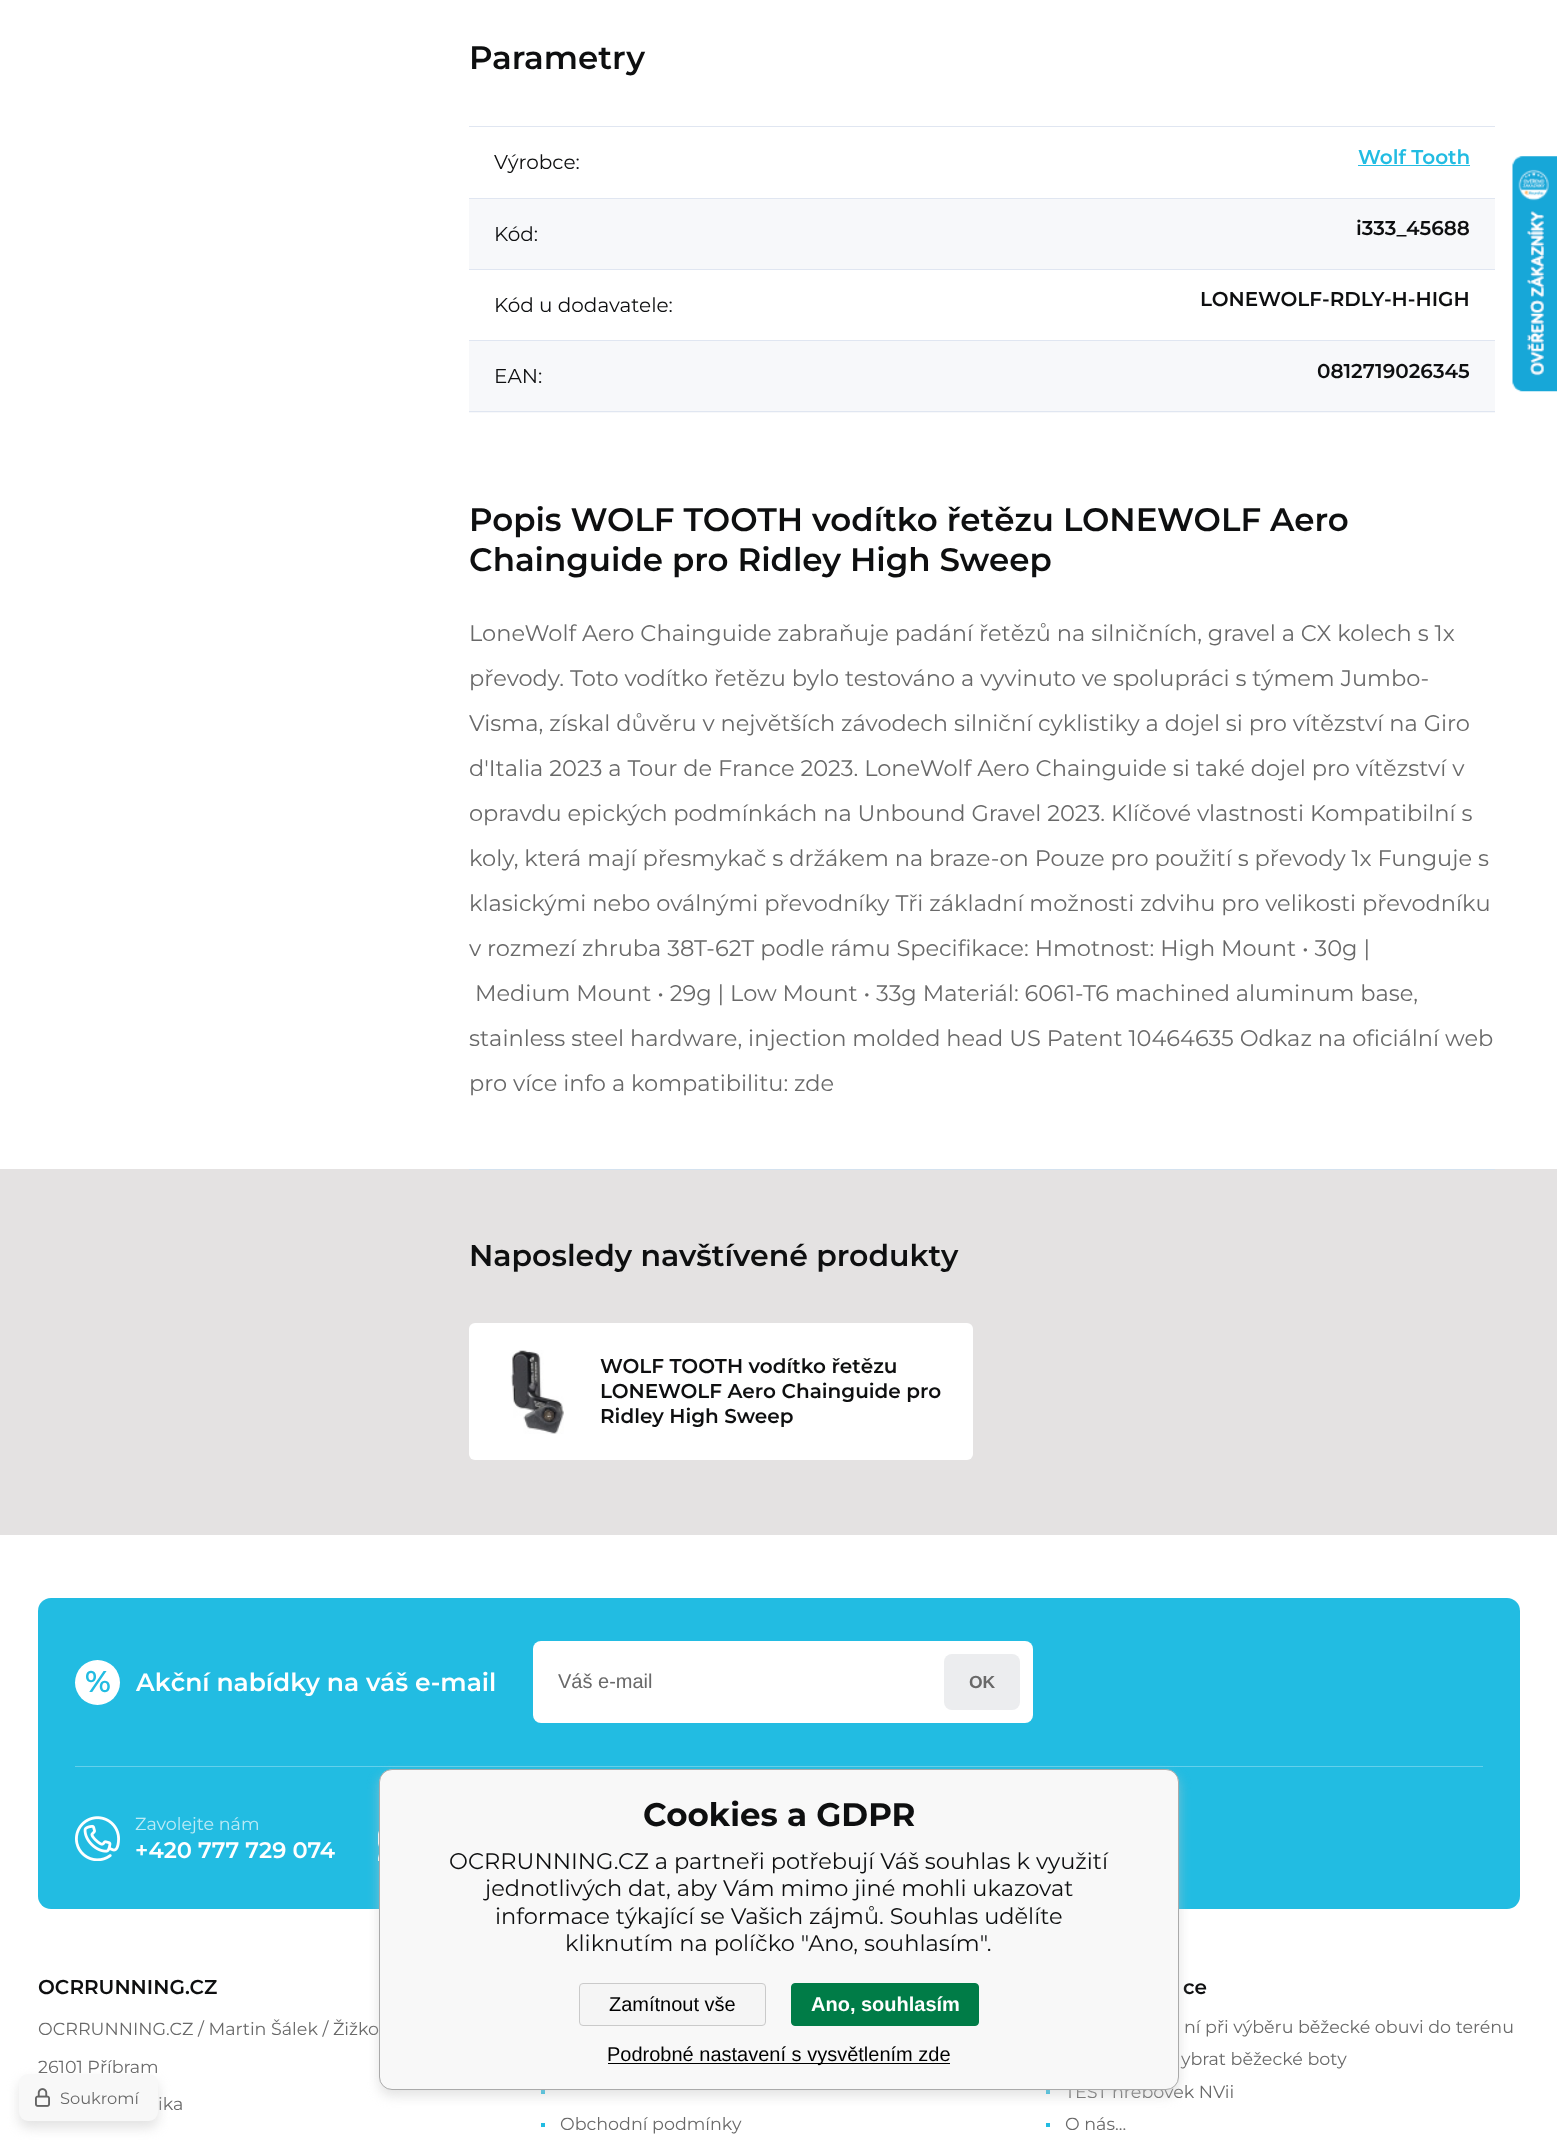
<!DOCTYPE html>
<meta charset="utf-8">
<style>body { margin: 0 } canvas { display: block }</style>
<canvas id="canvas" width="1557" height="2140"></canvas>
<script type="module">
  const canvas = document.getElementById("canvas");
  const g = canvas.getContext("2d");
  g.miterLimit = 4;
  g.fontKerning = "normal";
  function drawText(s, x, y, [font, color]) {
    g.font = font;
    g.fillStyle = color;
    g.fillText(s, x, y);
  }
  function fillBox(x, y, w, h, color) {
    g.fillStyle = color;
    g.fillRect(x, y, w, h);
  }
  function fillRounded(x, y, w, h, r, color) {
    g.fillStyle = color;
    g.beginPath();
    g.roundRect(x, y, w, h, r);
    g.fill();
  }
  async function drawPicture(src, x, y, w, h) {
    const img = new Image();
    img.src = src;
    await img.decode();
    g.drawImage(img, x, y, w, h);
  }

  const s1 = ["600 32.5px Montserrat", "#0E0F10"];
  const s2 = ["20px Montserrat", "#0E0F10"];
  const s3 = ["600 20px Montserrat", "#22BCE2"];
  const s4 = ["600 20px Montserrat", "#0E0F10"];
  const s5 = ["22.5px Montserrat", "#696969"];
  const s6 = ["600 30px Montserrat", "#0E0F10"];
  const s7 = ["600 30px Montserrat", "#22BCE2"];
  const s8 = ["600 25px Montserrat", "#FFFFFF"];
  const s9 = ["20px Liberation Sans", "#696969"];
  const s10 = ["bold 17.5px Liberation Sans", "#696969"];
  const s11 = ["17.5px Montserrat", "#BDEBF6"];
  const s12 = ["600 22.5px Montserrat", "#FFFFFF"];
  const s13 = ["17.5px Montserrat", "#696969"];
  const s14 = ["bold 32.5px Montserrat", "#0E0F10"];
  const s15 = ["22.5px Montserrat", "#0E0F10"];
  const s16 = ["20px Liberation Sans", "#000000"];
  const s17 = ["bold 20px Liberation Sans", "#FFFFFF"];
  const s18 = ["16.25px Montserrat", "#696969"];

  fillBox(0, 0, 1557, 2140, "#FFFFFF");
  drawText("Parametry", 469, 69, s1);
  fillBox(469, 126, 1026, 1, "#E0E6F1");
  drawText("Výrobce:", 494, 169, s2);
  drawText("Wolf Tooth", 1358, 164, s3);
  fillBox(1358, 165, 112, 1, "#22BCE2");
  fillBox(469, 199, 1026, 70, "#F7F8FA");
  fillBox(469, 198, 1026, 1, "#E0E6F1");
  fillBox(469, 269, 1026, 1, "#E0E6F1");
  drawText("Kód:", 494, 241, s2);
  drawText("i333_45688", 1356, 235, s4);
  drawText("Kód u dodavatele:", 494, 312, s2);
  drawText("LONEWOLF-RDLY-H-HIGH", 1200, 306, s4);
  fillBox(469, 341, 1026, 72, "#F7F8FA");
  fillBox(469, 340, 1026, 1, "#E0E6F1");
  fillBox(469, 411, 1026, 1, "#E0E6F1");
  drawText("EAN:", 494, 383, s2);
  drawText("0812719026345", 1317, 378, s4);
  drawText("Popis WOLF TOOTH vodítko řetězu LONEWOLF Aero", 469, 531, s1);
  drawText("Chainguide pro Ridley High Sweep", 469, 571, s1);
  drawText("LoneWolf Aero Chainguide zabraňuje padání řetězů na silničních, gravel a CX kolech s 1x", 469, 641, s5);
  drawText("převody. Toto vodítko řetězu bylo testováno a vyvinuto ve spolupráci s týmem Jumbo-", 469, 686, s5);
  drawText("Visma, získal důvěru v největších závodech silniční cyklistiky a dojel si pro vítězství na Giro", 469, 731, s5);
  drawText("d'Italia 2023 a Tour de France 2023. LoneWolf Aero Chainguide si také dojel pro vítězství v", 469, 776, s5);
  drawText("opravdu epických podmínkách na Unbound Gravel 2023. Klíčové vlastnosti Kompatibilní s", 469, 821, s5);
  drawText("koly, která mají přesmykač s držákem na braze-on Pouze pro použití s převody 1x Funguje s", 469, 866, s5);
  drawText("klasickými nebo oválnými převodníky Tři základní možnosti zdvihu pro velikosti převodníku", 469, 911, s5);
  drawText("v rozmezí zhruba 38T-62T podle rámu Specifikace: Hmotnost: High Mount • 30g |", 469, 956, s5);
  drawText("Medium Mount • 29g | Low Mount • 33g Materiál: 6061-T6 machined aluminum base,", 475, 1001, s5);
  drawText("stainless steel hardware, injection molded head US Patent 10464635 Odkaz na oficiální web", 469, 1046, s5);
  drawText("pro více info a kompatibilitu: zde", 469, 1091, s5);
  fillBox(0, 1169, 1557, 366, "#E4E2E2");
  fillBox(469, 1169, 1026, 1, "#D4E2EF");
  drawText("Naposledy navštívené produkty", 469, 1266, s6);
  fillRounded(469, 1323, 504, 137, 6, "#FFFFFF");
  await drawPicture("pic1.png", 510, 1350, 54, 84);
  drawText("WOLF TOOTH vodítko řetězu", 600, 1373, s4);
  drawText("LONEWOLF Aero Chainguide pro", 600, 1398, s4);
  drawText("Ridley High Sweep", 600, 1423, s4);
  fillRounded(38, 1598, 1482, 311, 13, "#22BCE2");
  g.fillStyle = "#FFFFFF";
  g.beginPath();
  g.arc(97.5, 1682.5, 22.5, 0, Math.PI * 2);
  g.fill();
  drawText("%", 85, 1692, s7);
  drawText("Akční nabídky na váš e-mail", 136, 1691, s8);
  fillRounded(533, 1641, 500, 82, 8, "#FFFFFF");
  drawText("Váš e-mail", 558, 1688, s9);
  fillRounded(944, 1654, 76, 56, 8, "#ECEDEF");
  drawText("OK", 969, 1688, s10);
  fillBox(75, 1766, 1408, 1, "#64D0EB");
  await drawPicture("pic2.png", 75, 1816, 45, 45);
  drawText("Zavolejte nám", 135, 1830, s11);
  drawText("+420 777 729 074", 135, 1858, s12);
  await drawPicture("pic3.png", 378, 1831, 1, 30);
  drawText("OCRRUNNING.CZ", 38, 1994, s4);
  drawText("OCRRUNNING.CZ / Martin Šálek / Žižko", 38, 2035, s13);
  drawText("26101 Příbram", 38, 2073, s13);
  drawText("ika", 158, 2110, s13);
  fillBox(541, 2090, 4, 4, "#22BCE2");
  fillBox(541, 2123, 4, 4, "#22BCE2");
  drawText("Obchodní podmínky", 560, 2130, s13);
  drawText("ce", 1183, 1994, s4);
  drawText("ní při výběru běžecké obuvi do terénu", 1184, 2033, s13);
  drawText("ybrat běžecké boty", 1181, 2065, s13);
  fillBox(1046, 2090, 4, 4, "#22BCE2");
  drawText("TEST hřebovek NVii", 1065, 2098, s13);
  fillBox(1046, 2123, 4, 4, "#22BCE2");
  drawText("O nás...", 1065, 2130, s13);
  await drawPicture("pic4.png", 1512, 156, 45, 236);
  g.fillStyle = "rgba(200, 200, 200, 0.5)";
  g.filter = "blur(6px)";
  g.beginPath();
  g.roundRect(379, 1775, 800, 321, 13);
  g.fill();
  g.filter = "none";
  g.fillStyle = "#F8F8F8";
  g.beginPath();
  g.roundRect(379.5, 1769.5, 799, 320, 12.5);
  g.fill();
  g.strokeStyle = "#AAAAAA";
  g.stroke();
  drawText("Cookies a GDPR", 643, 1826, s14);
  drawText("OCRRUNNING.CZ a partneři potřebují Váš souhlas k využití", 449, 1869, s15);
  drawText("jednotlivých dat, aby Vám mimo jiné mohli ukazovat", 485, 1896, s15);
  drawText("informace týkající se Vašich zájmů. Souhlas udělíte", 495, 1924, s15);
  drawText("kliknutím na políčko \"Ano, souhlasím\".", 565, 1951, s15);
  g.fillStyle = "#F5F5F5";
  g.beginPath();
  g.roundRect(579.5, 1983.5, 186, 42, 3.5);
  g.fill();
  g.strokeStyle = "#CACACA";
  g.stroke();
  drawText("Zamítnout vše", 609, 2011, s16);
  g.fillStyle = "#007C47";
  g.beginPath();
  g.roundRect(791.5, 1983.5, 187, 42, 3.5);
  g.fill();
  g.strokeStyle = "#007C47";
  g.stroke();
  drawText("Ano, souhlasím", 811, 2011, s17);
  fillBox(608, 2063, 342, 1, "#000000");
  drawText("Podrobné nastavení s vysvětlením zde", 607, 2061, s16);
  g.fillStyle = "rgba(200, 200, 200, 0.5)";
  g.filter = "blur(6px)";
  g.beginPath();
  g.roundRect(19, 2080, 139, 48, 9);
  g.fill();
  g.filter = "none";
  fillRounded(19, 2074, 139, 47, 9, "#F8F8F8");
  await drawPicture("pic5.png", 35, 2088, 15, 19);
  drawText("Soukromí", 60, 2104, s18);
</script>
